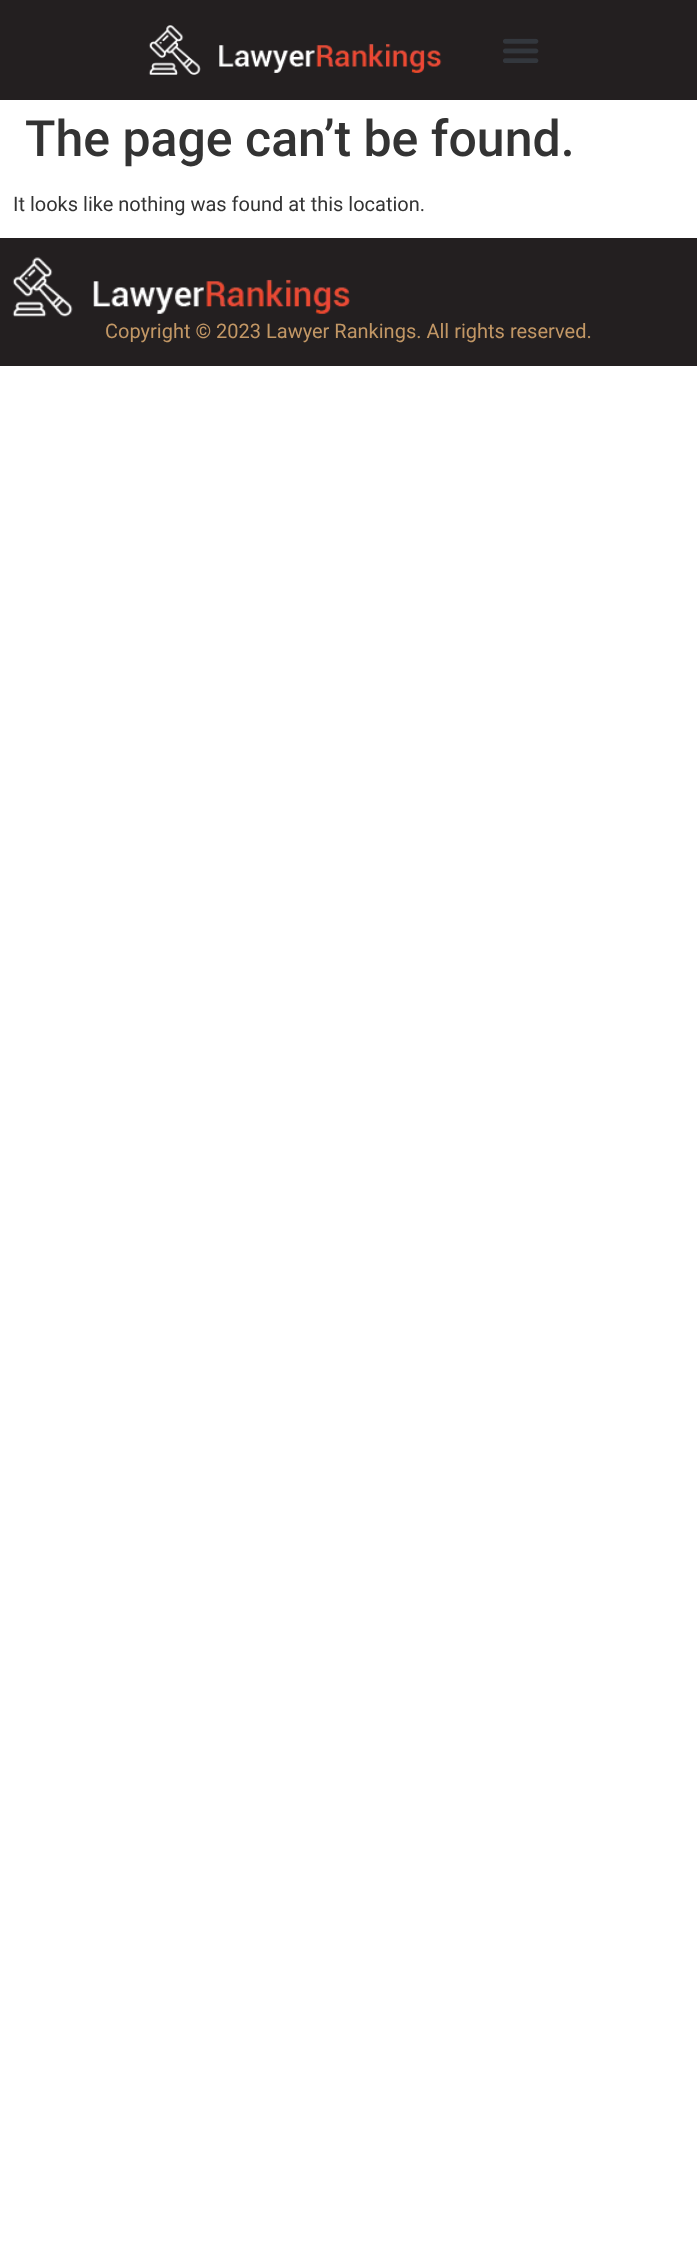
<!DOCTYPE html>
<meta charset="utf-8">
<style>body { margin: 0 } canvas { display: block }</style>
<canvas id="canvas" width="697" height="2263"></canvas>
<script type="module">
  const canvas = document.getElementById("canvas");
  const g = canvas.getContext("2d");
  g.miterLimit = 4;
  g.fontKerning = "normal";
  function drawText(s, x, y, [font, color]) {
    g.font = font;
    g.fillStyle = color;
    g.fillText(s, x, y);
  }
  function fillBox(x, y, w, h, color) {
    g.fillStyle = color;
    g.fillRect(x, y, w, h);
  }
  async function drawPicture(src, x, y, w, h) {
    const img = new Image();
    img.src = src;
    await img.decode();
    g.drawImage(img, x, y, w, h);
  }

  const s1 = ["500 50px Roboto", "#333333"];
  const s2 = ["20px Roboto", "#333333"];
  const s3 = ["20px Roboto", "#C29765"];

  fillBox(0, 0, 697, 2263, "#FFFFFF");
  fillBox(0, 0, 697, 100, "#231F20");
  await drawPicture("pic1.png", 148, 25, 294, 50);
  await drawPicture("pic2.png", 503, 38, 36, 25);
  drawText("The page can’t be found.", 25, 156, s1);
  drawText("It looks like nothing was found at this location.", 13, 211, s2);
  fillBox(0, 238, 697, 128, "#231F20");
  await drawPicture("pic3.png", 12, 257, 338, 60);
  drawText("Copyright © 2023 Lawyer Rankings. All rights reserved.", 105, 338, s3);
</script>
